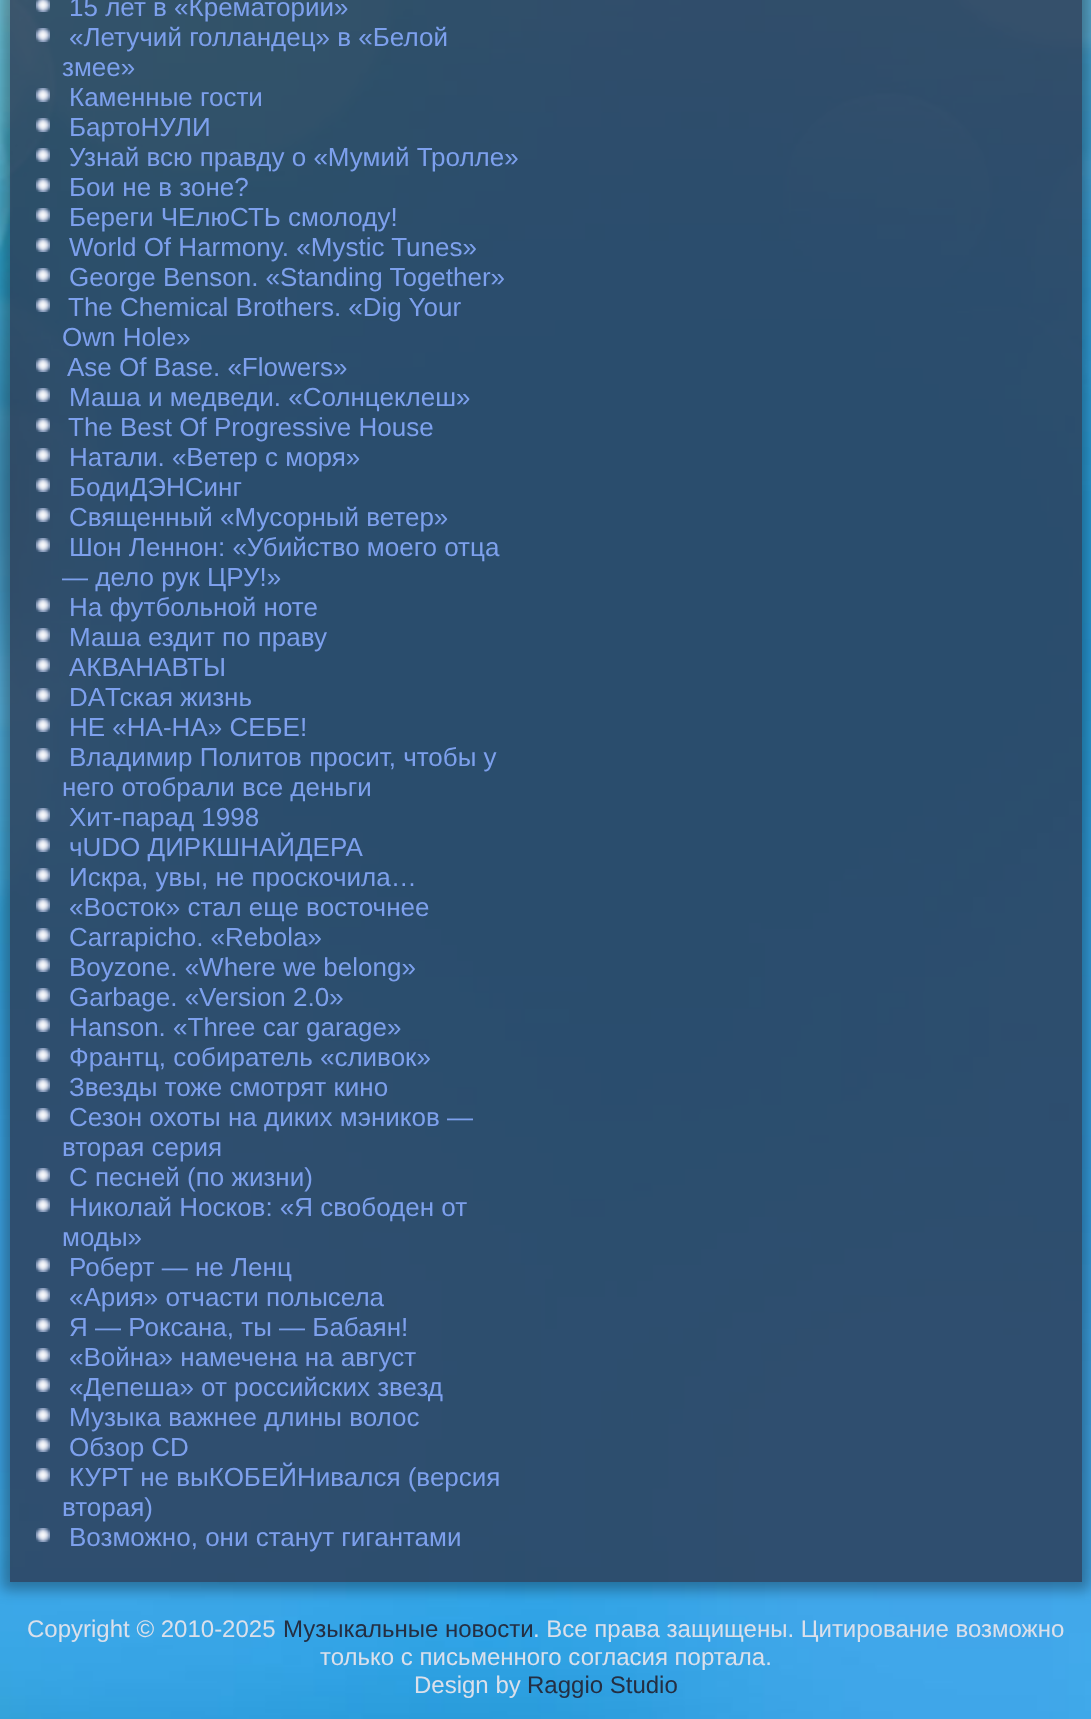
<!DOCTYPE html>
<meta charset="utf-8">
<style>body { margin: 0 } canvas { display: block }</style>
<canvas id="canvas" width="1091" height="1719"></canvas>
<script type="module">
  const canvas = document.getElementById("canvas");
  const g = canvas.getContext("2d");
  g.miterLimit = 4;
  g.fontKerning = "normal";
  function drawText(s, x, y, [font, color]) {
    g.font = font;
    g.fillStyle = color;
    g.fillText(s, x, y);
  }
  function fillBox(x, y, w, h, color) {
    g.fillStyle = color;
    g.fillRect(x, y, w, h);
  }
  async function drawPicture(src, x, y, w, h) {
    const img = new Image();
    img.src = src;
    await img.decode();
    g.drawImage(img, x, y, w, h);
  }

  const s1 = ["26px Liberation Sans", "#7DA0ED"];
  const s2 = ["24px Liberation Sans", "#DBE0EB"];
  const s3 = ["24px Liberation Sans", "#242E42"];

  fillBox(0, 0, 1091, 1719, "#FFFFFF");
  await drawPicture("pic1.png", 0, 0, 1091, 1719);
  g.save();
  g.beginPath();
  g.moveTo(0, 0);
  g.lineTo(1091, 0);
  g.lineTo(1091, 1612);
  g.lineTo(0, 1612);
  g.closePath();
  g.moveTo(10, -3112);
  g.lineTo(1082, -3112);
  g.lineTo(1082, 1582);
  g.lineTo(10, 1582);
  g.closePath();
  g.clip("evenodd");
  g.fillStyle = "rgba(0, 0, 0, 0.32)";
  g.filter = "blur(7px)";
  g.beginPath();
  g.rect(2, -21, 1088, 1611);
  g.fill();
  g.filter = "none";
  g.restore();
  await drawPicture("pic2.png", 36, 0, 14, 12);
  drawText("15 лет в «Крематории»", 69, 16, s1);
  await drawPicture("pic3.png", 36, 28, 14, 14);
  drawText("«Летучий голландец» в «Белой", 69, 46, s1);
  drawText("змее»", 62, 76, s1);
  await drawPicture("pic4.png", 36, 88, 14, 14);
  drawText("Каменные гости", 69, 106, s1);
  await drawPicture("pic5.png", 36, 118, 14, 14);
  drawText("БартоНУЛИ", 69, 136, s1);
  await drawPicture("pic6.png", 36, 148, 14, 14);
  drawText("Узнай всю правду о «Мумий Тролле»", 69, 166, s1);
  await drawPicture("pic7.png", 36, 178, 14, 14);
  drawText("Бои не в зоне?", 69, 196, s1);
  await drawPicture("pic8.png", 36, 208, 14, 14);
  drawText("Береги ЧЕлюСТЬ смолоду!", 69, 226, s1);
  await drawPicture("pic9.png", 36, 238, 14, 14);
  drawText("World Of Harmony. «Mystic Tunes»", 69, 256, s1);
  await drawPicture("pic10.png", 36, 268, 14, 14);
  drawText("George Benson. «Standing Together»", 69, 286, s1);
  await drawPicture("pic11.png", 36, 298, 14, 14);
  drawText("The Chemical Brothers. «Dig Your", 68, 316, s1);
  drawText("Own Hole»", 62, 346, s1);
  await drawPicture("pic12.png", 36, 358, 14, 14);
  drawText("Ase Of Base. «Flowers»", 67, 376, s1);
  await drawPicture("pic13.png", 36, 388, 14, 14);
  drawText("Маша и медведи. «Солнцеклеш»", 69, 406, s1);
  await drawPicture("pic14.png", 36, 418, 14, 14);
  drawText("The Best Of Progressive House", 68, 436, s1);
  await drawPicture("pic15.png", 36, 448, 14, 14);
  drawText("Натали. «Ветер с моря»", 69, 466, s1);
  await drawPicture("pic16.png", 36, 478, 14, 14);
  drawText("БодиДЭНСинг", 69, 496, s1);
  await drawPicture("pic17.png", 36, 508, 14, 14);
  drawText("Священный «Мусорный ветер»", 69, 526, s1);
  await drawPicture("pic18.png", 36, 538, 14, 14);
  drawText("Шон Леннон: «Убийство моего отца", 69, 556, s1);
  drawText("— дело рук ЦРУ!»", 62, 586, s1);
  await drawPicture("pic19.png", 36, 598, 14, 14);
  drawText("На футбольной ноте", 69, 616, s1);
  await drawPicture("pic20.png", 36, 628, 14, 14);
  drawText("Маша ездит по праву", 69, 646, s1);
  await drawPicture("pic21.png", 36, 658, 14, 14);
  drawText("АКВАНАВТЫ", 69, 676, s1);
  await drawPicture("pic22.png", 36, 688, 14, 14);
  drawText("DAТская жизнь", 69, 706, s1);
  await drawPicture("pic23.png", 36, 718, 14, 14);
  drawText("НЕ «НА-НА» СЕБЕ!", 69, 736, s1);
  await drawPicture("pic24.png", 36, 748, 14, 14);
  drawText("Владимир Политов просит, чтобы у", 69, 766, s1);
  drawText("него отобрали все деньги", 62, 796, s1);
  await drawPicture("pic25.png", 36, 808, 14, 14);
  drawText("Хит-парад 1998", 69, 826, s1);
  await drawPicture("pic26.png", 36, 838, 14, 14);
  drawText("чUDO ДИРКШНАЙДЕРА", 69, 856, s1);
  await drawPicture("pic27.png", 36, 868, 14, 14);
  drawText("Искра, увы, не проскочила…", 69, 886, s1);
  await drawPicture("pic28.png", 36, 898, 14, 14);
  drawText("«Восток» стал еще восточнее", 69, 916, s1);
  await drawPicture("pic29.png", 36, 928, 14, 14);
  drawText("Carraрicho. «Rebola»", 69, 946, s1);
  await drawPicture("pic30.png", 36, 958, 14, 14);
  drawText("Boyzone. «Where we belong»", 69, 976, s1);
  await drawPicture("pic31.png", 36, 988, 14, 14);
  drawText("Garbage. «Version 2.0»", 69, 1006, s1);
  await drawPicture("pic32.png", 36, 1018, 14, 14);
  drawText("Hanson. «Three car garage»", 69, 1036, s1);
  await drawPicture("pic33.png", 36, 1048, 14, 14);
  drawText("Франтц, собиратель «сливок»", 69, 1066, s1);
  await drawPicture("pic34.png", 36, 1078, 14, 14);
  drawText("Звезды тоже смотрят кино", 69, 1096, s1);
  await drawPicture("pic35.png", 36, 1108, 14, 14);
  drawText("Сезон охоты на диких мэников —", 69, 1126, s1);
  drawText("вторая серия", 62, 1156, s1);
  await drawPicture("pic36.png", 36, 1168, 14, 14);
  drawText("С песней (по жизни)", 69, 1186, s1);
  await drawPicture("pic37.png", 36, 1198, 14, 14);
  drawText("Николай Носков: «Я свободен от", 69, 1216, s1);
  drawText("моды»", 62, 1246, s1);
  await drawPicture("pic37.png", 36, 1258, 14, 14);
  drawText("Роберт — не Ленц", 69, 1276, s1);
  await drawPicture("pic37.png", 36, 1288, 14, 14);
  drawText("«Ария» отчасти полысела", 69, 1306, s1);
  await drawPicture("pic37.png", 36, 1318, 14, 14);
  drawText("Я — Роксана, ты — Бабаян!", 69, 1336, s1);
  await drawPicture("pic37.png", 36, 1348, 14, 14);
  drawText("«Война» намечена на август", 69, 1366, s1);
  await drawPicture("pic37.png", 36, 1378, 14, 14);
  drawText("«Депеша» от российских звезд", 69, 1396, s1);
  await drawPicture("pic37.png", 36, 1408, 14, 14);
  drawText("Музыка важнее длины волос", 69, 1426, s1);
  await drawPicture("pic37.png", 36, 1438, 14, 14);
  drawText("Обзор CD", 69, 1456, s1);
  await drawPicture("pic37.png", 36, 1468, 14, 14);
  drawText("КУРТ не выКОБЕЙНивался (версия", 69, 1486, s1);
  drawText("вторая)", 62, 1516, s1);
  await drawPicture("pic38.png", 36, 1528, 14, 14);
  drawText("Возможно, они станут гигантами", 69, 1546, s1);
  drawText("Copyright © 2010-2025", 27, 1637, s2);
  drawText("Музыкальные новости", 283, 1637, s3);
  drawText(". Все права защищены. Цитирование возможно", 533, 1637, s2);
  drawText("только с письменного согласия портала.", 320, 1665, s2);
  drawText("Design by", 414, 1693, s2);
  drawText("Raggio Studio", 527, 1693, s3);
</script>
